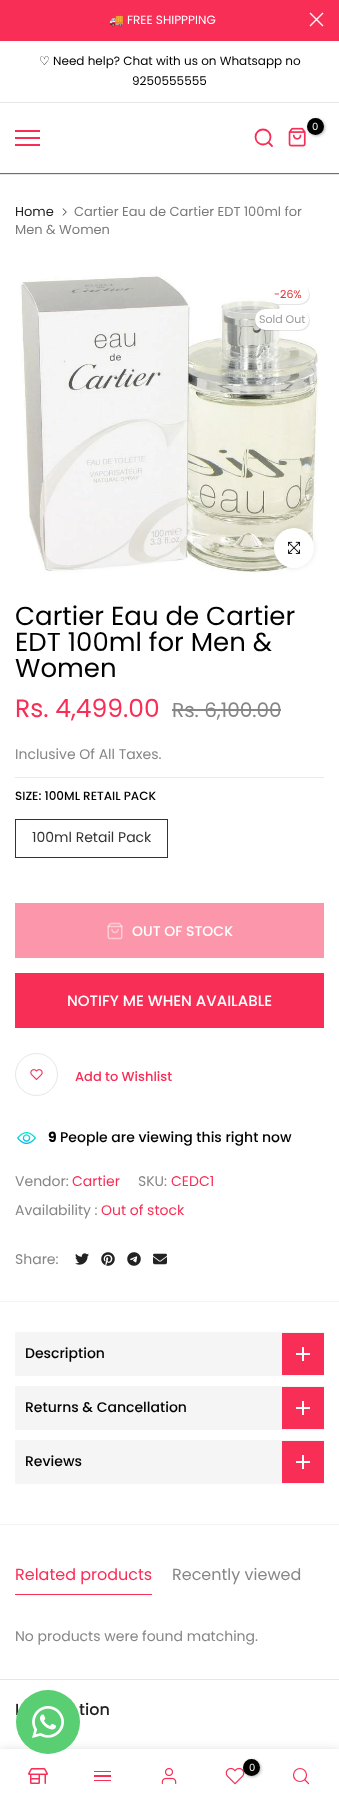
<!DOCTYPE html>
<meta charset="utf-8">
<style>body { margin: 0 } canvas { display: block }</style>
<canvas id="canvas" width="339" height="1804"></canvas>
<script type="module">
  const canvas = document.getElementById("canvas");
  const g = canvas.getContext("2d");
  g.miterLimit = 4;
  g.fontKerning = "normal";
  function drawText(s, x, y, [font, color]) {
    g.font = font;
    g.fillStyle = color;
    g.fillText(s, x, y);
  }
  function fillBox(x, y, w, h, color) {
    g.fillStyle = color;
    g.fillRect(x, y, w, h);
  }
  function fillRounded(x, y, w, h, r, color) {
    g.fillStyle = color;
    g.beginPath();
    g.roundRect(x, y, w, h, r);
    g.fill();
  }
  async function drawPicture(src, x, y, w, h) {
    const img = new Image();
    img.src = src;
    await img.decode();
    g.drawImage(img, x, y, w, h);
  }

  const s1 = ["12px Noto Color Emoji", "#FFFFFF"];
  const s2 = ["12px Poppins", "#FFFFFF"];
  const s3 = ["12px DejaVu Sans", "#000000"];
  const s4 = ["12px Poppins", "#000000"];
  const s5 = ["10px Poppins", "#FFFFFF"];
  const s6 = ["13px Poppins", "#222222"];
  const s7 = ["13px Poppins", "#7A7A7A"];
  const s8 = ["11px Poppins", "#E33131"];
  const s9 = ["11px Poppins", "#999999"];
  const s10 = ["26px Poppins", "#000000"];
  const s11 = ["25px Poppins", "#F82E56"];
  const s12 = ["20px Poppins", "#868686"];
  const s13 = ["14px Poppins", "#868686"];
  const s14 = ["500 12px Poppins", "#000000"];
  const s15 = ["14px Poppins", "#333333"];
  const s16 = ["500 14px Poppins", "#FFFFFF"];
  const s17 = ["500 15px Poppins", "#FFFFFF"];
  const s18 = ["500 13px Poppins", "#F82E56"];
  const s19 = ["bold 14px Poppins", "#000000"];
  const s20 = ["500 14px Poppins", "#000000"];
  const s21 = ["14px Poppins", "#F82E56"];
  const s22 = ["16px Poppins", "#F82E56"];
  const s23 = ["16px Poppins", "#868686"];
  const s24 = ["500 16px Poppins", "#222222"];

  fillBox(0, 0, 339, 1804, "#FFFFFF");
  fillBox(0, 0, 339, 41, "#F82E56");
  drawText("🚚", 109, 24, s1);
  drawText("FREE SHIPPPING", 127, 24, s2);
  g.beginPath();
  g.moveTo(323, 13);
  g.lineTo(310, 26);
  g.moveTo(323, 26);
  g.lineTo(310, 13);
  g.strokeStyle = "#FFFFFF";
  g.lineWidth = 1.4;
  g.stroke();
  fillBox(0, 102, 339, 1, "#E6E6E6");
  drawText("♡", 39, 65, s3);
  drawText("Need help? Chat with us on Whatsapp no", 53, 65, s4);
  drawText("9250555555", 132, 85, s4);
  fillBox(0, 173, 339, 1, "#F82E56");
  await drawPicture("pic1.png", 288, 127, 18, 20);
  g.fillStyle = "rgba(0, 0, 0, 0.3)";
  g.filter = "blur(1.5px)";
  g.beginPath();
  g.roundRect(308, 119, 17, 17, 8.5);
  g.fill();
  g.filter = "none";
  g.fillStyle = "#000000";
  g.beginPath();
  g.arc(315.5, 126.5, 8.5, 0, Math.PI * 2);
  g.fill();
  drawText("0", 312, 130, s5);
  g.beginPath();
  g.arc(263, 137, 7.5, 0, Math.PI * 2);
  g.strokeStyle = "#F82E56";
  g.lineWidth = 1.8;
  g.stroke();
  g.beginPath();
  g.moveTo(272, 146);
  g.lineTo(268.5, 142.5);
  g.lineCap = "round";
  g.lineJoin = "round";
  g.stroke();
  fillBox(15, 130, 25, 2, "#F82E56");
  fillBox(15, 137, 25, 2, "#F82E56");
  fillBox(15, 144, 25, 2, "#F82E56");
  fillBox(0, 174, 339, 1, "#E6E6E6");
  drawText("Home", 15, 216, s6);
  await drawPicture("pic2.png", 62, 208, 5, 8);
  drawText("Cartier Eau de Cartier EDT 100ml for", 74, 216, s7);
  drawText("Men & Women", 15, 234, s7);
  await drawPicture("pic3.png", 19, 274, 300, 300);
  g.fillStyle = "rgba(0, 0, 0, 0.1)";
  g.filter = "blur(0.5px)";
  g.beginPath();
  g.roundRect(268, 285, 42, 20, 10);
  g.fill();
  g.filter = "none";
  fillRounded(267, 284, 42, 20, 10, "#FFFFFF");
  drawText("-26%", 274, 298, s8);
  g.fillStyle = "rgba(0, 0, 0, 0.1)";
  g.filter = "blur(0.5px)";
  g.beginPath();
  g.roundRect(255, 310, 55, 21, 10.5);
  g.fill();
  g.filter = "none";
  fillRounded(255, 309, 54, 21, 10.5, "#FFFFFF");
  drawText("Sold Out", 259, 323, s9);
  g.fillStyle = "rgba(0, 0, 0, 0.09)";
  g.filter = "blur(2.5px)";
  g.beginPath();
  g.roundRect(274, 528, 40, 40, 20);
  g.fill();
  g.filter = "none";
  g.fillStyle = "#FFFFFF";
  g.beginPath();
  g.arc(294, 548, 20, 0, Math.PI * 2);
  g.fill();
  await drawPicture("pic4.png", 288, 541, 12, 13);
  drawText("Cartier Eau de Cartier", 15, 625, s10);
  drawText("EDT 100ml for Men &", 15, 651, s10);
  drawText("Women", 15, 677, s10);
  drawText("Rs. 4,499.00", 15, 717, s11);
  drawText("Rs. 6,100.00", 172, 717, s12);
  fillBox(172, 709, 109, 2, "#868686");
  drawText("Inclusive Of All Taxes.", 15, 759, s13);
  fillBox(15, 777, 309, 1, "#E9E9E9");
  drawText("SIZE: 100ML RETAIL PACK", 15, 800, s14);
  g.strokeStyle = "#333333";
  g.lineWidth = 1;
  g.lineJoin = "miter";
  g.strokeRect(15.5, 819.5, 152, 38);
  drawText("100ml Retail Pack", 32, 842, s15);
  fillBox(15, 903, 309, 55, "#FC97AB");
  await drawPicture("pic5.png", 107, 922, 16, 18);
  drawText("OUT OF STOCK", 132, 936, s16);
  fillBox(15, 973, 309, 55, "#F82E56");
  drawText("NOTIFY ME WHEN AVAILABLE", 67, 1006, s17);
  g.beginPath();
  g.arc(36.5, 1074.5, 21, 0, Math.PI * 2);
  g.strokeStyle = "#E6E6E6";
  g.stroke();
  await drawPicture("pic6.png", 30, 1069, 13, 11);
  drawText("Add to Wishlist", 75, 1081, s18);
  await drawPicture("pic7.png", 17, 1132, 19, 12);
  drawText("9", 48, 1142, s19);
  drawText("People are viewing this right now", 60, 1142, s20);
  drawText("Vendor:", 15, 1186, s13);
  drawText("Cartier", 72, 1186, s21);
  drawText("SKU:", 138, 1186, s13);
  drawText("CEDC1", 171, 1186, s21);
  drawText("Availability :", 15, 1215, s13);
  drawText("Out of stock", 101, 1215, s21);
  drawText("Share:", 15, 1264, s13);
  await drawPicture("pic8.png", 75, 1253, 14, 12);
  await drawPicture("pic9.png", 101, 1252, 14, 14);
  await drawPicture("pic10.png", 127, 1252, 14, 14);
  await drawPicture("pic11.png", 153, 1253, 14, 12);
  fillBox(0, 1301, 339, 1, "#F3F3F3");
  fillBox(0, 1524, 339, 1, "#F3F3F3");
  fillBox(15, 1332, 309, 44, "#F5F5F5");
  drawText("Description", 25, 1358, s20);
  fillBox(282, 1333, 42, 42, "#F82E56");
  fillBox(302, 1347, 2, 14, "#FFFFFF");
  fillBox(296, 1353, 14, 2, "#FFFFFF");
  fillBox(15, 1386, 309, 44, "#F5F5F5");
  drawText("Returns & Cancellation", 25, 1412, s20);
  fillBox(282, 1387, 42, 42, "#F82E56");
  fillBox(302, 1401, 2, 14, "#FFFFFF");
  fillBox(296, 1407, 14, 2, "#FFFFFF");
  fillBox(15, 1440, 309, 44, "#F5F5F5");
  drawText("Reviews", 25, 1466, s20);
  fillBox(282, 1441, 42, 42, "#F82E56");
  fillBox(302, 1455, 2, 14, "#FFFFFF");
  fillBox(296, 1461, 14, 2, "#FFFFFF");
  drawText("Related products", 15, 1580, s22);
  fillBox(15, 1594, 137, 1, "#F82E56");
  drawText("Recently viewed", 172, 1580, s23);
  drawText("No products were found matching.", 15, 1641, s13);
  drawText("I", 15, 1715, s24);
  drawText("tion", 79, 1715, s24);
  g.fillStyle = "rgba(0, 0, 0, 0.12)";
  g.filter = "blur(4.5px)";
  g.beginPath();
  g.rect(0, 1749, 339, 55);
  g.fill();
  g.filter = "none";
  fillBox(0, 1749, 339, 55, "#FFFFFF");
  g.fillStyle = "#59CE72";
  g.beginPath();
  g.arc(48, 1722, 32, 0, Math.PI * 2);
  g.fill();
  await drawPicture("pic12.png", 32, 1706, 32, 32);
  fillBox(0, 1679, 339, 1, "#E6E6E6");
  await drawPicture("pic13.png", 28, 1768, 20, 16);
  fillBox(94, 1771, 17, 1, "#F82E56");
  fillBox(94, 1775, 17, 2, "#F82E56");
  fillBox(94, 1780, 17, 1, "#F82E56");
  await drawPicture("pic14.png", 161, 1767, 16, 18);
  await drawPicture("pic15.png", 225, 1767, 20, 18);
  g.fillStyle = "rgba(0, 0, 0, 0.3)";
  g.filter = "blur(1.5px)";
  g.beginPath();
  g.roundRect(244, 1760, 17, 17, 8.5);
  g.fill();
  g.filter = "none";
  g.fillStyle = "#000000";
  g.beginPath();
  g.arc(251.5, 1767.5, 8.5, 0, Math.PI * 2);
  g.fill();
  drawText("0", 249, 1771, s5);
  g.beginPath();
  g.arc(300, 1775, 6.5, 0, Math.PI * 2);
  g.strokeStyle = "#F82E56";
  g.lineWidth = 1.2;
  g.stroke();
  g.beginPath();
  g.moveTo(308.5, 1783.5);
  g.lineTo(305, 1780);
  g.lineJoin = "round";
  g.stroke();
</script>
